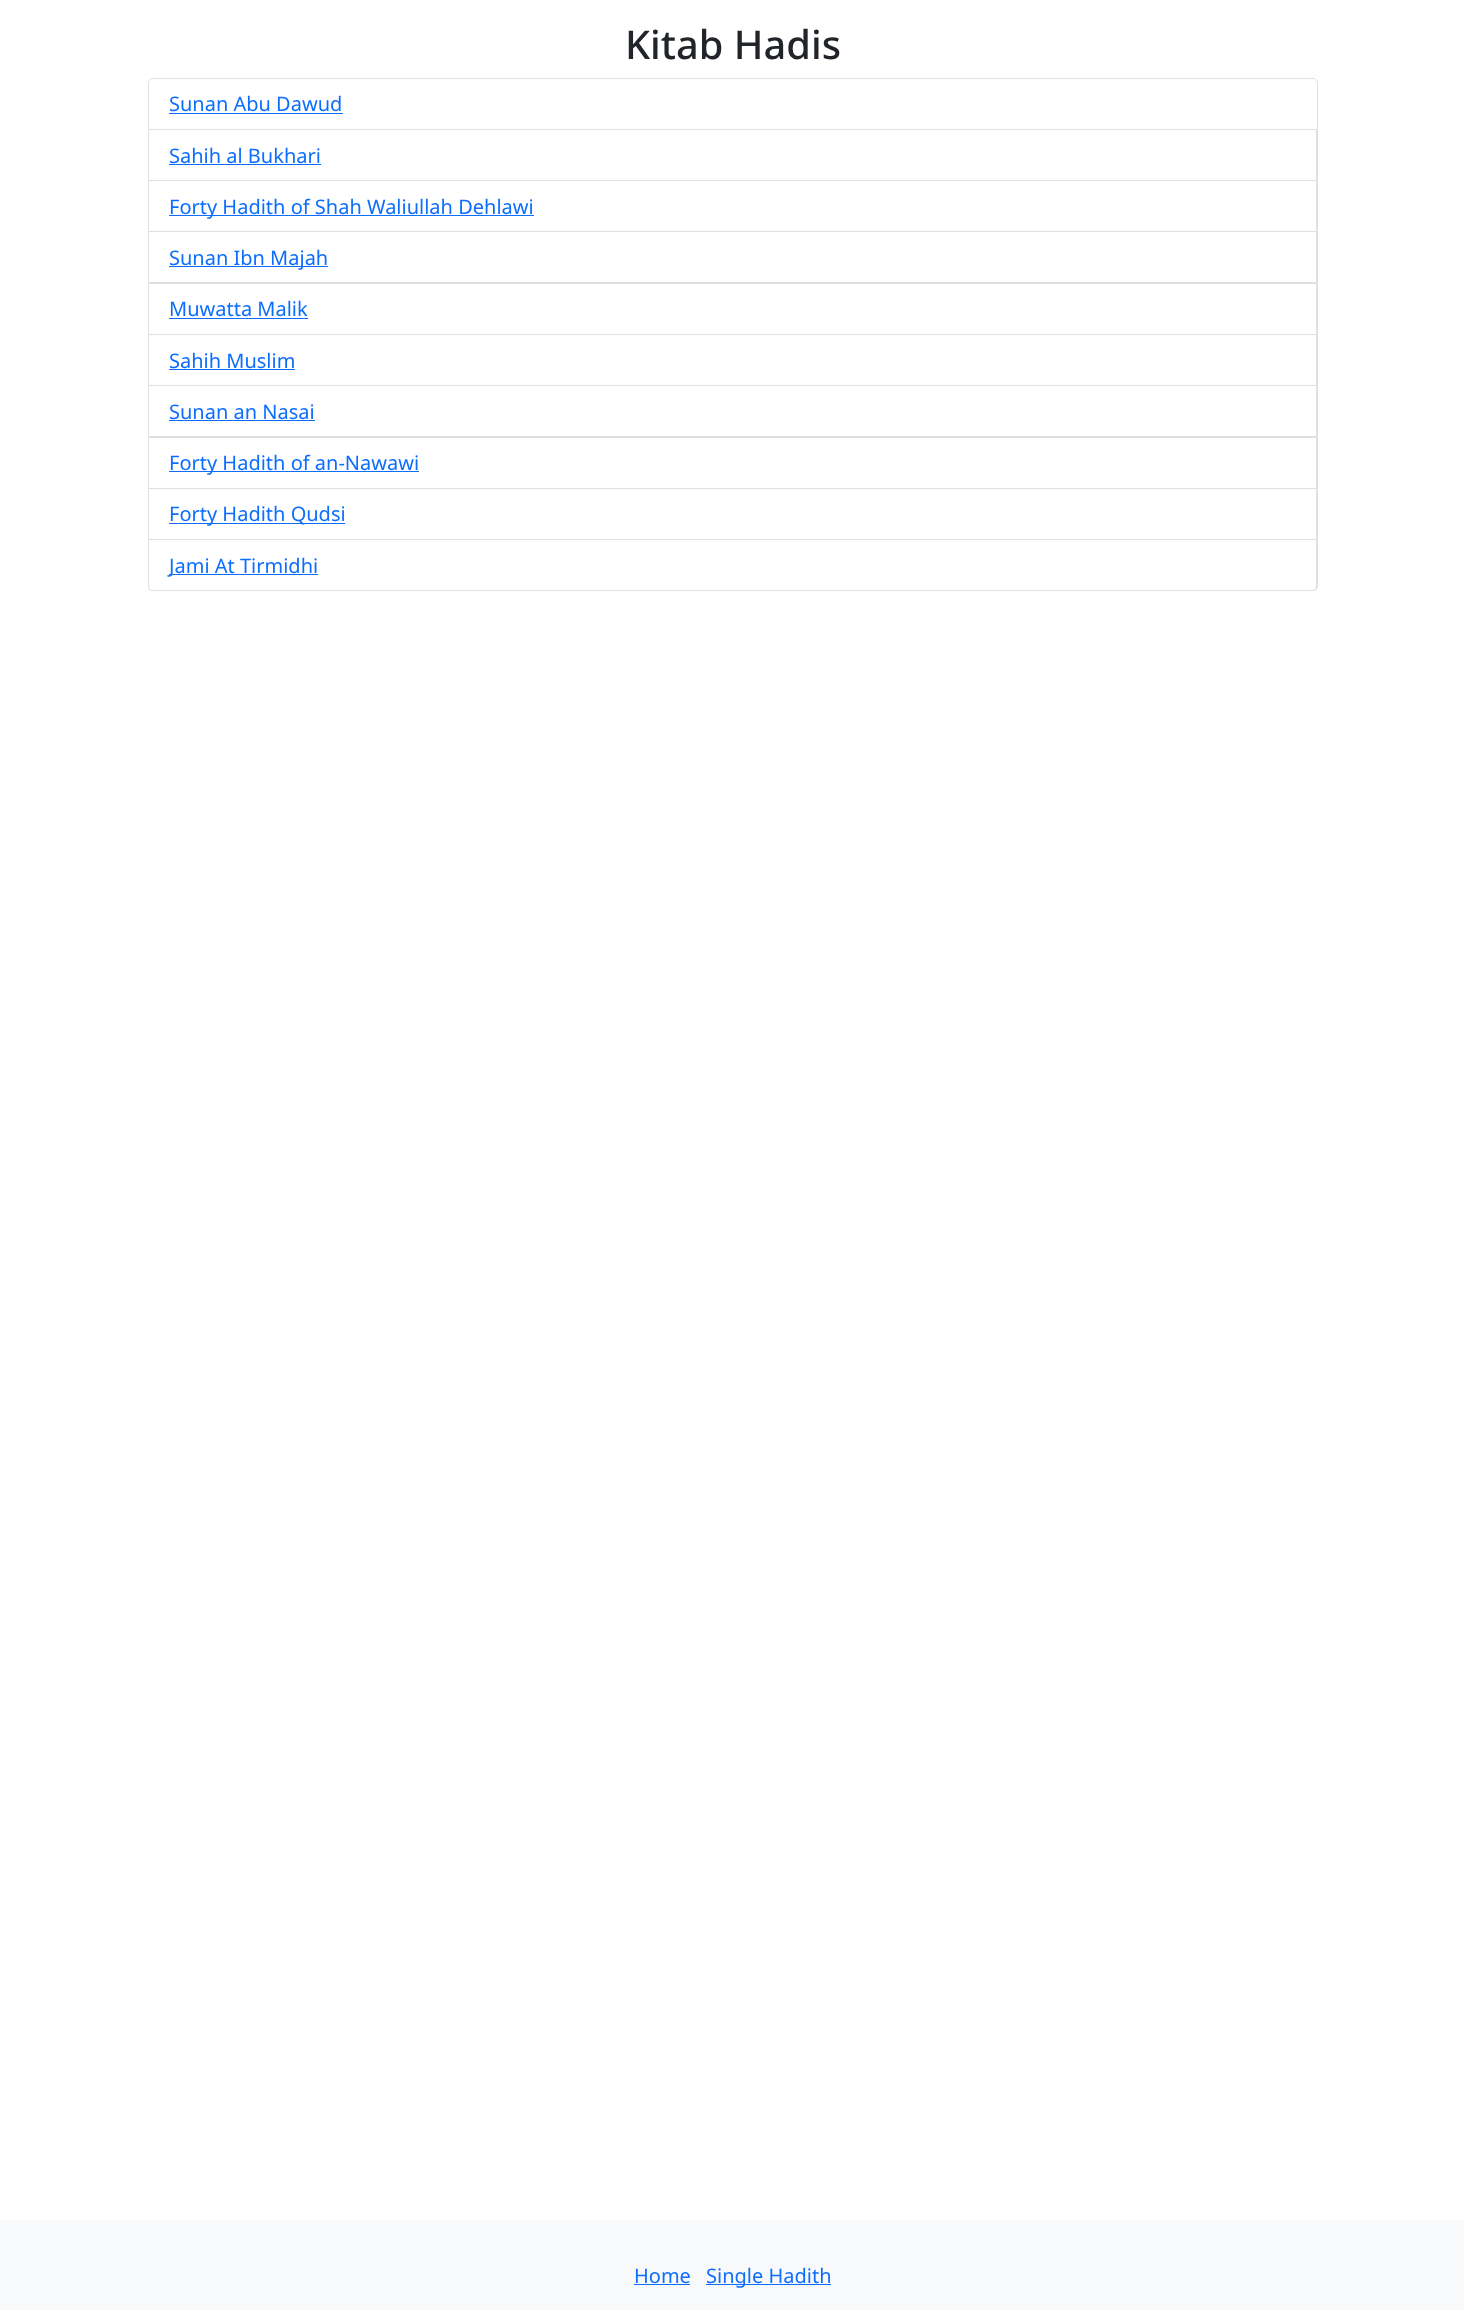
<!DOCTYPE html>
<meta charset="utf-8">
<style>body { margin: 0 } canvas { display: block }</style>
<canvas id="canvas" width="1464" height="2310"></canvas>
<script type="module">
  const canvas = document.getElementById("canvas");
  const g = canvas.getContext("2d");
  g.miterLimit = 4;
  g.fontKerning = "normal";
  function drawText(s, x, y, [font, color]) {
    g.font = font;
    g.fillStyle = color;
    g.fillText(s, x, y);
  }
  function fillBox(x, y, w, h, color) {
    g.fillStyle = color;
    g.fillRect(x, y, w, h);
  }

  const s1 = ["500 39.75px Noto Sans", "#212529"];
  const s2 = ["20px Noto Sans", "#0D6EFD"];

  fillBox(0, 0, 1464, 2310, "#FFFFFF");
  drawText("Kitab Hadis", 625, 59, s1);
  g.beginPath();
  g.roundRect(148.5, 78.5, 1169, 51, [4.5, 4.5, 0, 0]);
  g.strokeStyle = "#DFDFDF";
  g.stroke();
  drawText("Sunan Abu Dawud", 169, 111, s2);
  fillBox(169, 113, 174, 1, "#0D6EFD");
  g.fillStyle = "#DFDFDF";
  g.beginPath();
  g.moveTo(1318, 130);
  g.lineTo(1318, 181);
  g.lineTo(1316, 180);
  g.lineTo(1316, 130);
  g.closePath();
  g.fill();
  g.fillStyle = "rgba(0, 0, 0, 0.12)";
  g.beginPath();
  g.moveTo(1318, 181);
  g.lineTo(148, 181);
  g.lineTo(149, 180);
  g.lineTo(1316, 180);
  g.closePath();
  g.fill();
  g.beginPath();
  g.moveTo(148, 181);
  g.lineTo(148, 130);
  g.lineTo(149, 130);
  g.lineTo(149, 180);
  g.closePath();
  g.fill();
  drawText("Sahih al Bukhari", 169, 163, s2);
  fillBox(169, 164, 152, 1, "#0D6EFD");
  g.fillStyle = "#DFDFDF";
  g.beginPath();
  g.moveTo(1318, 181);
  g.lineTo(1318, 232);
  g.lineTo(1316, 231);
  g.lineTo(1316, 181);
  g.closePath();
  g.fill();
  g.fillStyle = "rgba(0, 0, 0, 0.12)";
  g.beginPath();
  g.moveTo(1318, 232);
  g.lineTo(148, 232);
  g.lineTo(149, 231);
  g.lineTo(1316, 231);
  g.closePath();
  g.fill();
  g.beginPath();
  g.moveTo(148, 232);
  g.lineTo(148, 181);
  g.lineTo(149, 181);
  g.lineTo(149, 231);
  g.closePath();
  g.fill();
  fillBox(169, 215, 365, 1, "#0D6EFD");
  drawText("Forty Hadith of Shah Waliullah Dehlawi", 169, 214, s2);
  g.fillStyle = "#DFDFDF";
  g.beginPath();
  g.moveTo(1318, 232);
  g.lineTo(1318, 284);
  g.lineTo(1316, 282);
  g.lineTo(1316, 232);
  g.closePath();
  g.fill();
  g.fillStyle = "rgba(0, 0, 0, 0.12)";
  g.beginPath();
  g.moveTo(1318, 284);
  g.lineTo(148, 284);
  g.lineTo(149, 282);
  g.lineTo(1316, 282);
  g.closePath();
  g.fill();
  g.beginPath();
  g.moveTo(148, 284);
  g.lineTo(148, 232);
  g.lineTo(149, 232);
  g.lineTo(149, 282);
  g.closePath();
  g.fill();
  fillBox(169, 266, 159, 1, "#0D6EFD");
  drawText("Sunan Ibn Majah", 169, 265, s2);
  g.fillStyle = "#DFDFDF";
  g.beginPath();
  g.moveTo(1318, 284);
  g.lineTo(1318, 335);
  g.lineTo(1316, 334);
  g.lineTo(1316, 284);
  g.closePath();
  g.fill();
  g.fillStyle = "rgba(0, 0, 0, 0.12)";
  g.beginPath();
  g.moveTo(1318, 335);
  g.lineTo(148, 335);
  g.lineTo(149, 334);
  g.lineTo(1316, 334);
  g.closePath();
  g.fill();
  g.beginPath();
  g.moveTo(148, 335);
  g.lineTo(148, 284);
  g.lineTo(149, 284);
  g.lineTo(149, 334);
  g.closePath();
  g.fill();
  drawText("Muwatta Malik", 169, 316, s2);
  fillBox(169, 318, 139, 1, "#0D6EFD");
  g.fillStyle = "#DFDFDF";
  g.beginPath();
  g.moveTo(1318, 335);
  g.lineTo(1318, 386);
  g.lineTo(1316, 385);
  g.lineTo(1316, 335);
  g.closePath();
  g.fill();
  g.fillStyle = "rgba(0, 0, 0, 0.12)";
  g.beginPath();
  g.moveTo(1318, 386);
  g.lineTo(148, 386);
  g.lineTo(149, 385);
  g.lineTo(1316, 385);
  g.closePath();
  g.fill();
  g.beginPath();
  g.moveTo(148, 386);
  g.lineTo(148, 335);
  g.lineTo(149, 335);
  g.lineTo(149, 385);
  g.closePath();
  g.fill();
  drawText("Sahih Muslim", 169, 368, s2);
  fillBox(169, 369, 126, 1, "#0D6EFD");
  g.fillStyle = "#DFDFDF";
  g.beginPath();
  g.moveTo(1318, 386);
  g.lineTo(1318, 438);
  g.lineTo(1316, 436);
  g.lineTo(1316, 386);
  g.closePath();
  g.fill();
  g.fillStyle = "rgba(0, 0, 0, 0.12)";
  g.beginPath();
  g.moveTo(1318, 438);
  g.lineTo(148, 438);
  g.lineTo(149, 436);
  g.lineTo(1316, 436);
  g.closePath();
  g.fill();
  g.beginPath();
  g.moveTo(148, 438);
  g.lineTo(148, 386);
  g.lineTo(149, 386);
  g.lineTo(149, 436);
  g.closePath();
  g.fill();
  drawText("Sunan an Nasai", 169, 419, s2);
  fillBox(169, 420, 146, 1, "#0D6EFD");
  g.fillStyle = "#DFDFDF";
  g.beginPath();
  g.moveTo(1318, 438);
  g.lineTo(1318, 489);
  g.lineTo(1316, 488);
  g.lineTo(1316, 438);
  g.closePath();
  g.fill();
  g.fillStyle = "rgba(0, 0, 0, 0.12)";
  g.beginPath();
  g.moveTo(1318, 489);
  g.lineTo(148, 489);
  g.lineTo(149, 488);
  g.lineTo(1316, 488);
  g.closePath();
  g.fill();
  g.beginPath();
  g.moveTo(148, 489);
  g.lineTo(148, 438);
  g.lineTo(149, 438);
  g.lineTo(149, 488);
  g.closePath();
  g.fill();
  fillBox(169, 471, 250, 1, "#0D6EFD");
  drawText("Forty Hadith of an-Nawawi", 169, 470, s2);
  g.fillStyle = "#DFDFDF";
  g.beginPath();
  g.moveTo(1318, 489);
  g.lineTo(1318, 540);
  g.lineTo(1316, 539);
  g.lineTo(1316, 489);
  g.closePath();
  g.fill();
  g.fillStyle = "rgba(0, 0, 0, 0.12)";
  g.beginPath();
  g.moveTo(1318, 540);
  g.lineTo(148, 540);
  g.lineTo(149, 539);
  g.lineTo(1316, 539);
  g.closePath();
  g.fill();
  g.beginPath();
  g.moveTo(148, 540);
  g.lineTo(148, 489);
  g.lineTo(149, 489);
  g.lineTo(149, 539);
  g.closePath();
  g.fill();
  fillBox(169, 523, 176, 1, "#0D6EFD");
  drawText("Forty Hadith Qudsi", 169, 521, s2);
  g.fillStyle = "#DFDFDF";
  g.beginPath();
  g.moveTo(148, 540);
  g.lineTo(1318, 540);
  g.lineTo(1318, 586);
  g.bezierCurveTo(1318, 589, 1315, 591, 1312, 591);
  g.lineTo(152, 591);
  g.bezierCurveTo(150, 591, 148, 589, 148, 586);
  g.closePath();
  g.moveTo(149, 540);
  g.lineTo(1316, 540);
  g.lineTo(1316, 586);
  g.bezierCurveTo(1316, 588, 1315, 590, 1312, 590);
  g.lineTo(152, 590);
  g.bezierCurveTo(150, 590, 149, 588, 149, 586);
  g.closePath();
  g.fill("evenodd");
  fillBox(169, 574, 149, 1, "#0D6EFD");
  drawText("Jami At Tirmidhi", 169, 573, s2);
  fillBox(0, 2220, 1464, 90, "#F8F9FA");
  drawText("Home", 634, 2283, s2);
  fillBox(634, 2284, 56, 1, "#0D6EFD");
  fillBox(706, 2284, 125, 1, "#0D6EFD");
  drawText("Single Hadith", 706, 2283, s2);
</script>
